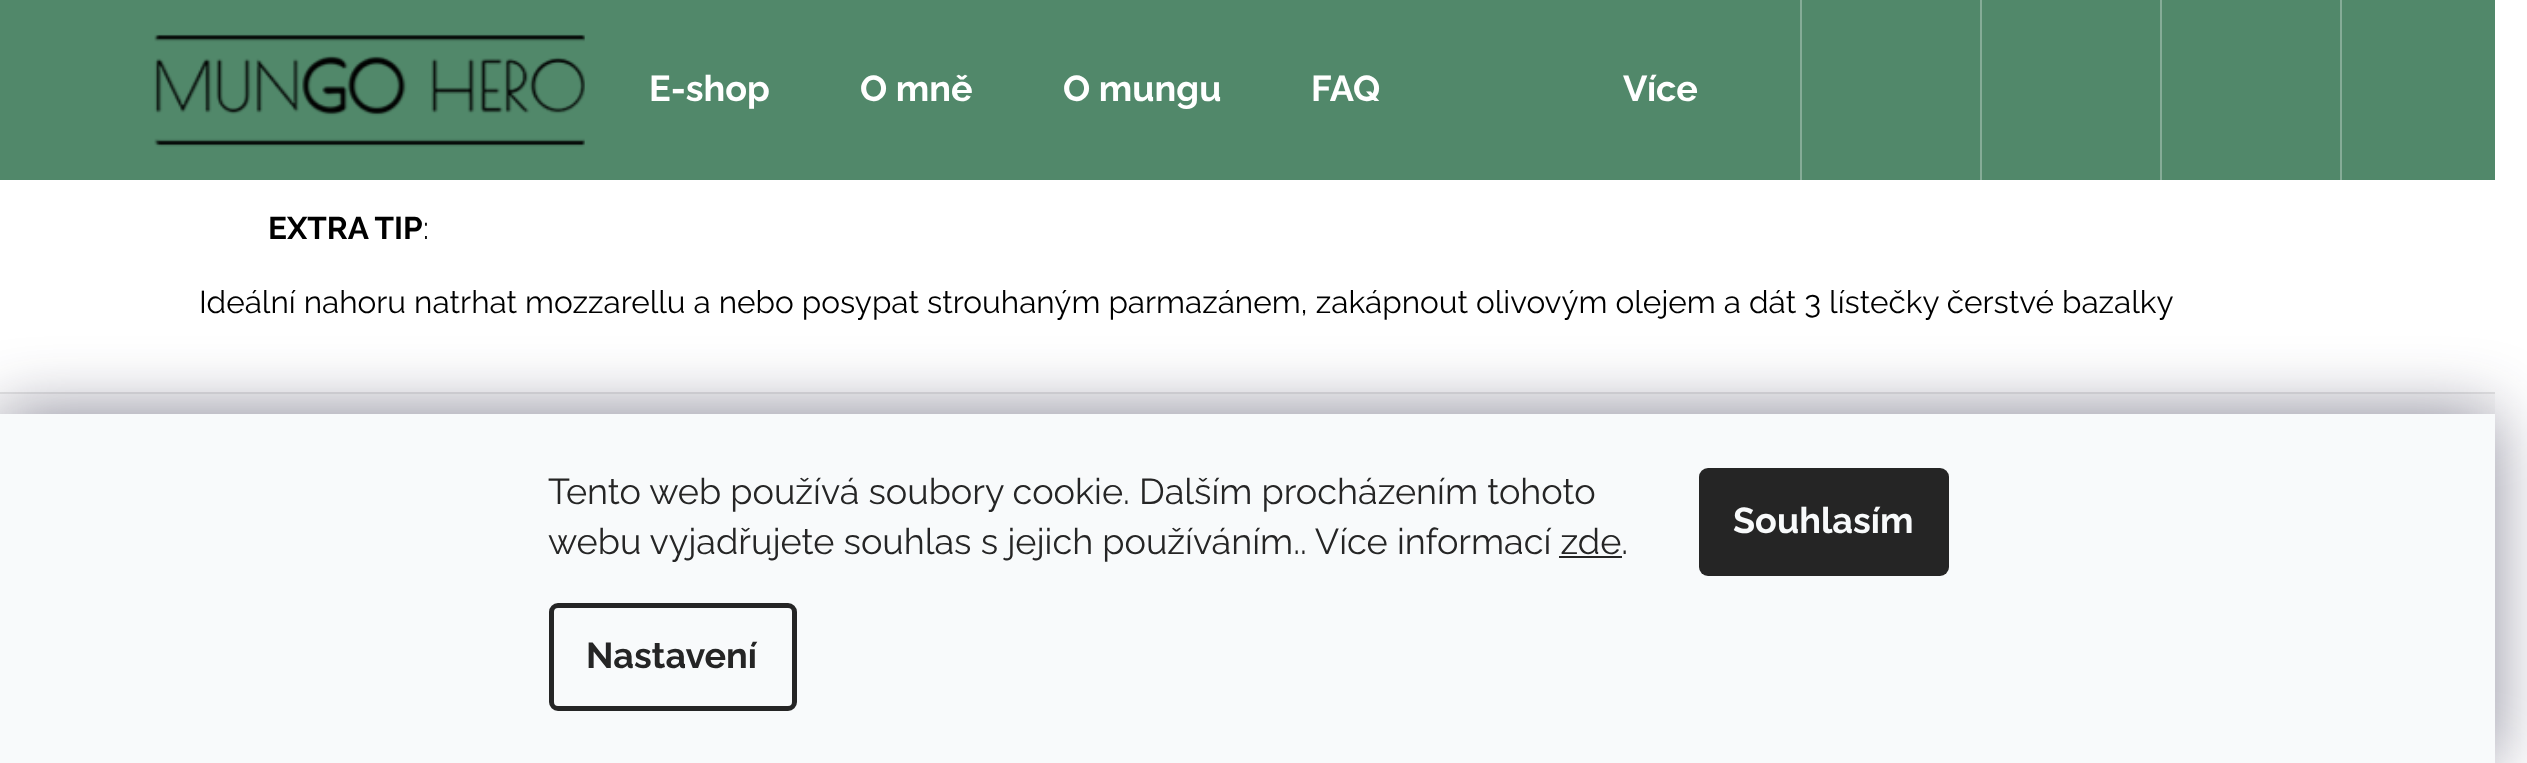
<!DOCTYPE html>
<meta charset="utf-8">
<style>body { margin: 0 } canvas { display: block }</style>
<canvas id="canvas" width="2527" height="763"></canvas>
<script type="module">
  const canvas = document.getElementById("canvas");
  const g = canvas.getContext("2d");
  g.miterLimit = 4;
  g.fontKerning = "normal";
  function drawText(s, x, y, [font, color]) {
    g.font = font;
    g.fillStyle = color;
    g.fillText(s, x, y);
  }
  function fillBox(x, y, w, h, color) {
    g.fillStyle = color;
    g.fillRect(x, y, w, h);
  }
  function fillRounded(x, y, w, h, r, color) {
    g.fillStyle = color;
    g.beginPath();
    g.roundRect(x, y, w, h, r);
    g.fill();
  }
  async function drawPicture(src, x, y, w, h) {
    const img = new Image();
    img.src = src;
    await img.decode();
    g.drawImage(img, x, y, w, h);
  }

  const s1 = ["bold 36px Raleway", "#FFFFFF"];
  const s2 = ["bold 31.5px Raleway", "#000000"];
  const s3 = ["31.5px Raleway", "#000000"];
  const s4 = ["36px Raleway", "#252525"];
  const s5 = ["bold 36px Raleway", "#252525"];
  const s6 = ["bold 36px Raleway", "#F8FAFB"];

  fillBox(0, 0, 2527, 763, "#FFFFFF");
  fillBox(0, 0, 2495, 180, "#51886A");
  await drawPicture("pic1.png", 154, 34, 431, 113);
  drawText("E-shop", 649, 101, s1);
  drawText("O mně", 860, 101, s1);
  drawText("O mungu", 1063, 101, s1);
  drawText("FAQ", 1311, 101, s1);
  drawText("Více", 1623, 101, s1);
  fillBox(2340, 0, 2, 180, "#85AC97");
  fillBox(1800, 0, 2, 180, "#85AC97");
  fillBox(1980, 0, 2, 180, "#85AC97");
  fillBox(2160, 0, 2, 180, "#85AC97");
  drawText("EXTRA TIP", 268, 239, s2);
  drawText(":", 423, 239, s3);
  drawText("Ideální nahoru natrhat mozzarellu a nebo posypat strouhaným parmazánem, zakápnout olivovým olejem a dát 3 lístečky čerstvé bazalky", 199, 313, s3);
  fillBox(0, 394, 2495, 20, "#F9F9F9");
  fillBox(0, 392, 2495, 2, "#E6E6E6");
  g.fillStyle = "rgba(27, 25, 57, 0.5)";
  g.filter = "blur(34px)";
  g.beginPath();
  g.rect(0, 414, 2495, 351);
  g.fill();
  g.filter = "none";
  fillBox(0, 414, 2495, 349, "#F8FAFB");
  drawText("Tento web používá soubory cookie. Dalším procházením tohoto", 548, 504, s4);
  drawText("webu vyjadřujete souhlas s jejich používáním.. Více informací zde.", 548, 554, s4);
  fillBox(1559, 556, 63, 2, "#252525");
  g.beginPath();
  g.roundRect(551.5, 605.5, 243, 103, 6.5);
  g.strokeStyle = "#252525";
  g.lineWidth = 5;
  g.stroke();
  drawText("Nastavení", 586, 668, s5);
  fillRounded(1699, 468, 250, 108, 9, "#252525");
  drawText("Souhlasím", 1733, 533, s6);
</script>
